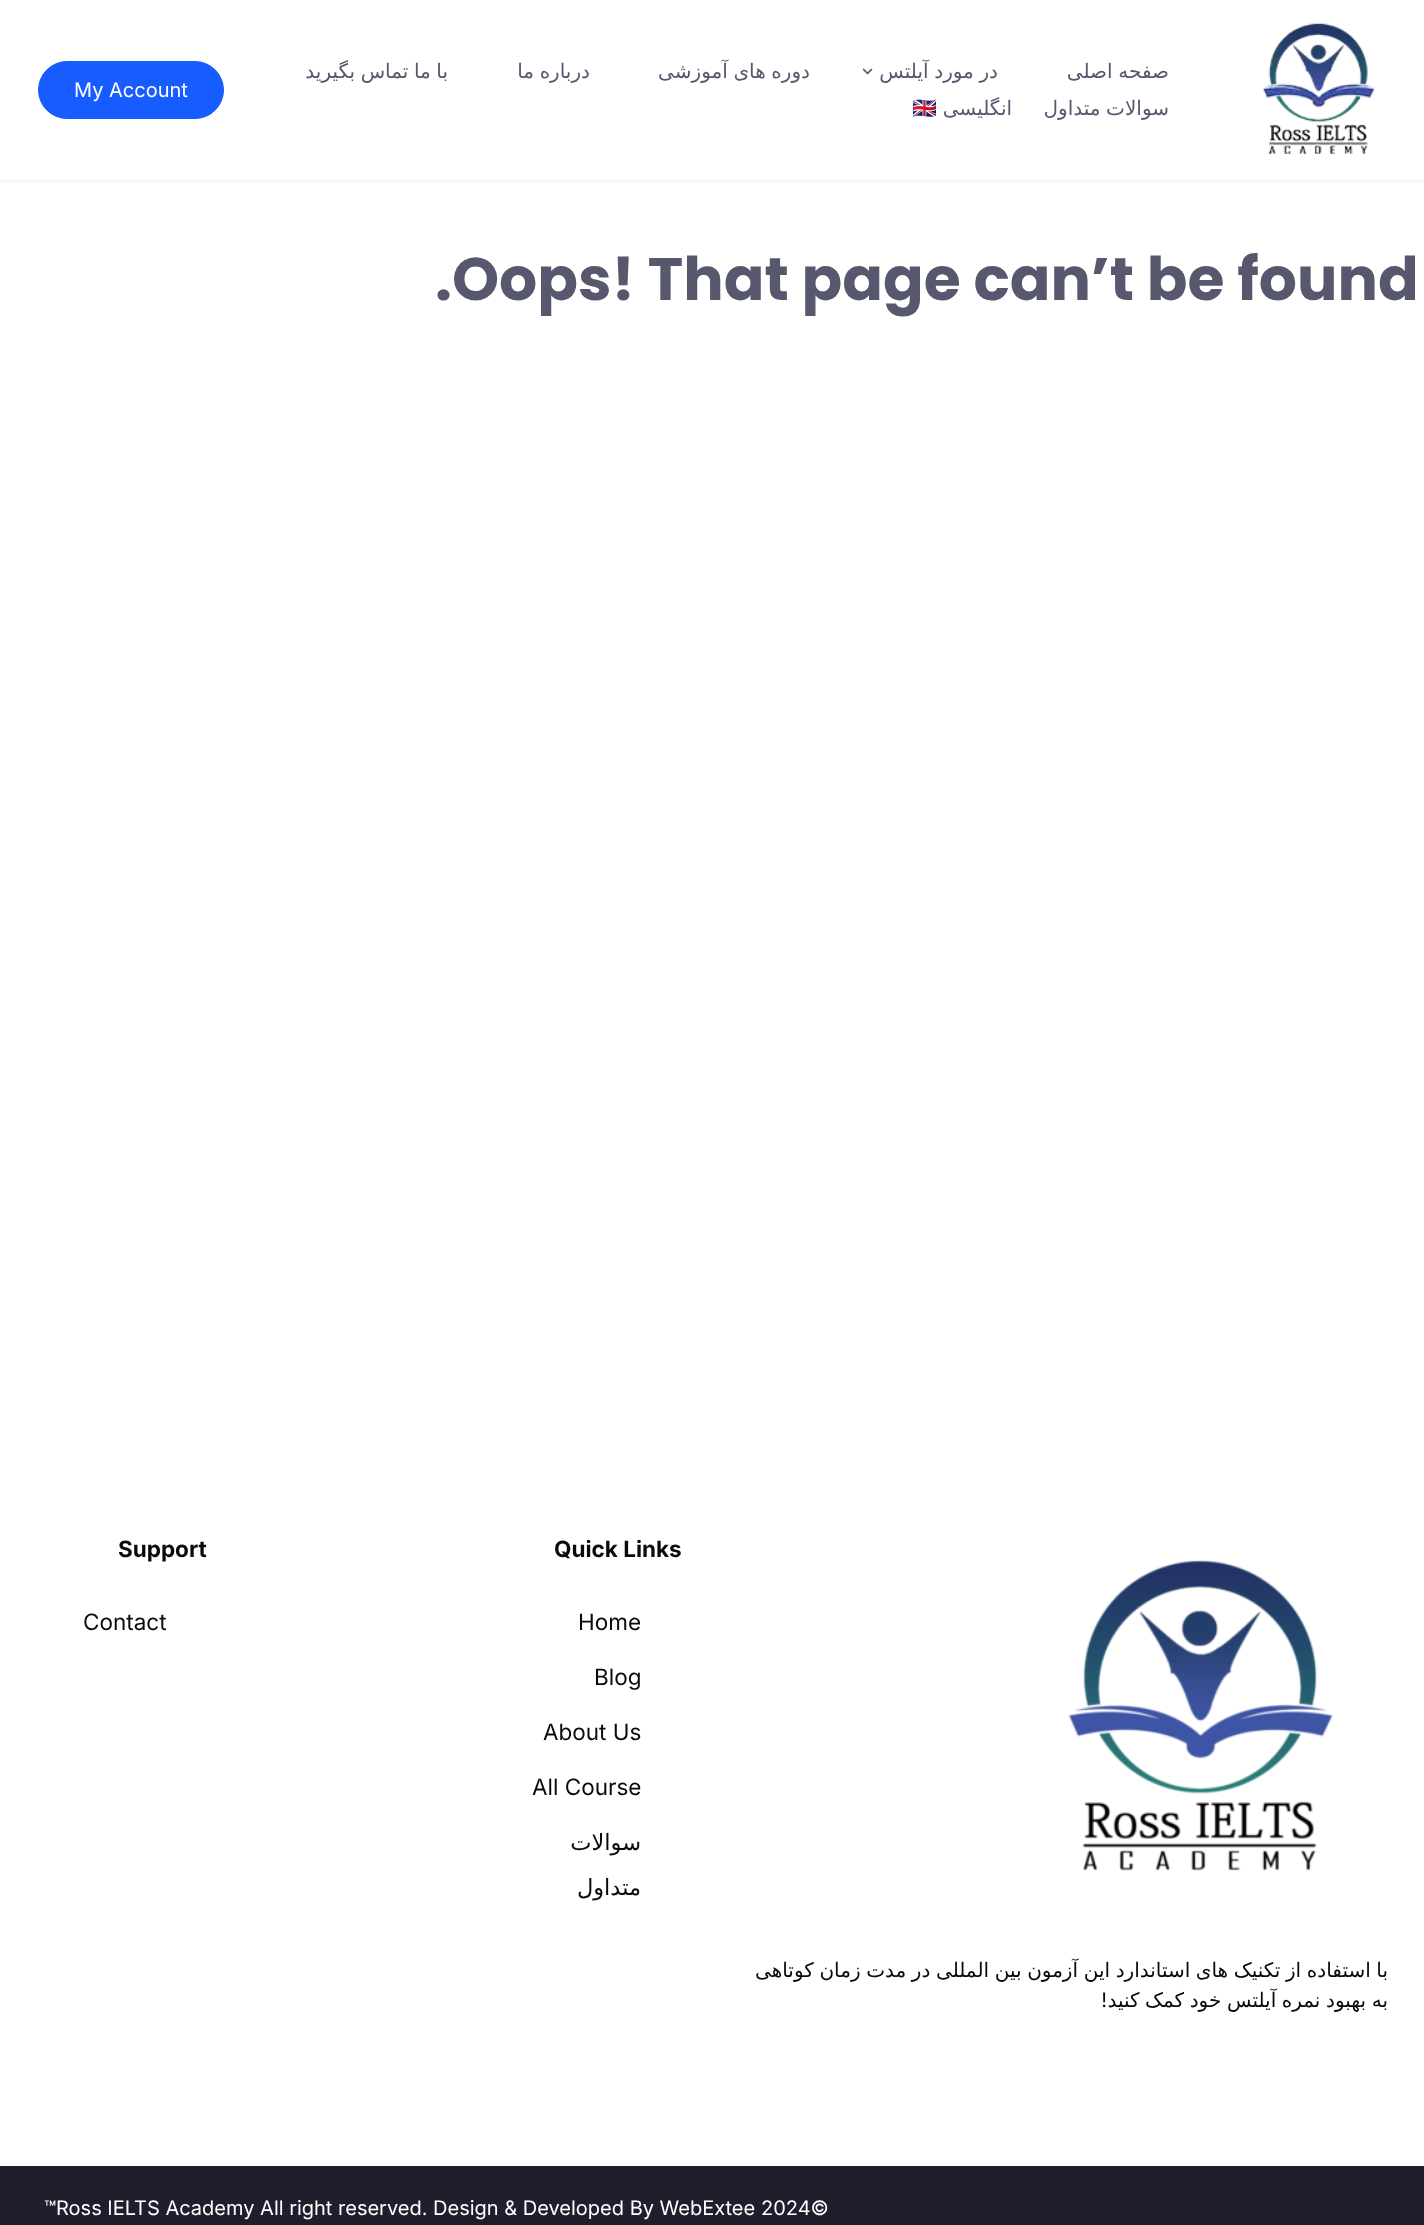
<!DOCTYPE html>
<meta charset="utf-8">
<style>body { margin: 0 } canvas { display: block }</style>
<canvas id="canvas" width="1424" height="2225"></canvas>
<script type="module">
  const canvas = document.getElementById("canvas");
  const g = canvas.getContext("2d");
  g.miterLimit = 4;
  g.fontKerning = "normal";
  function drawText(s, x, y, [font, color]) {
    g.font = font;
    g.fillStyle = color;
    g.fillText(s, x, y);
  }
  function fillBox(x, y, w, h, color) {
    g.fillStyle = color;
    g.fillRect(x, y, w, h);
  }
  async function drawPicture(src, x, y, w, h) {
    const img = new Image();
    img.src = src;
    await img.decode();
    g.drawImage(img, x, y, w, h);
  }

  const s1 = ["20px DejaVu Sans", "#57586E"];
  const s2 = ["20px Noto Color Emoji", "#57586E"];
  const s3 = ["20px Inter", "#FFFFFF"];
  const s4 = ["bold 60px Poppins", "#57586E"];
  const s5 = ["bold 22.5px Inter", "#0A0A0A"];
  const s6 = ["22.5px Inter", "#0A0A0A"];
  const s7 = ["22.5px DejaVu Sans", "#0A0A0A"];
  const s8 = ["20px DejaVu Sans", "#0A0A0A"];
  const s9 = ["20px Inter", "#0A0A0A"];

  fillBox(0, 0, 1424, 2225, "#FFFFFF");
  fillBox(0, 180, 1424, 3, "#F8F8F8");
  await drawPicture("pic1.png", 1262, 23, 113, 131);
  g.wordSpacing = "-0.75px";
  g.direction = "rtl";
  drawText("صفحه اصلی", 1169, 78, s1);
  drawText("در مورد آیلتس", 998, 78, s1);
  await drawPicture("pic2.png", 863, 68, 10, 7);
  drawText("دوره های آموزشی", 810, 78, s1);
  drawText("درباره ما", 590, 78, s1);
  drawText("با ما تماس بگیرید", 448, 78, s1);
  drawText("سوالات متداول", 1169, 115, s1);
  g.wordSpacing = "0px";
  drawText("انگلیسی", 1012, 115, s1);
  g.direction = "ltr";
  drawText("🇬🇧", 912, 115, s2);
  g.fillStyle = "#175CFF";
  g.beginPath();
  g.roundRect(38.5, 61.5, 185, 57, 28.5);
  g.fill();
  g.strokeStyle = "#175CFF";
  g.stroke();
  drawText("My Account", 74, 97, s3);
  drawText(".Oops! That page can’t be found", 435, 300, s4);
  drawText("Quick Links", 554, 1557, s5);
  drawText("Home", 578, 1630, s6);
  drawText("Blog", 594, 1685, s6);
  drawText("About Us", 543, 1740, s6);
  drawText("All Course", 532, 1795, s6);
  g.direction = "rtl";
  drawText("سوالات", 641, 1850, s7);
  drawText("متداول", 641, 1895, s7);
  g.direction = "ltr";
  drawText("Support", 118, 1557, s5);
  drawText("Contact", 83, 1630, s6);
  await drawPicture("pic3.png", 1068, 1560, 265, 311);
  g.wordSpacing = "-0.75px";
  g.direction = "rtl";
  drawText("با استفاده از تکنیک های استاندارد این آزمون بین المللی در مدت زمان کوتاهی", 1388, 1977, s8);
  drawText("به بهبود نمره آیلتس خود کمک کنید", 1388, 2007, s8);
  g.wordSpacing = "0px";
  drawText("!", 1107, 2007, s9);
  fillBox(0, 2166, 1424, 59, "#1E1E2C");
  g.direction = "ltr";
  drawText("2024©", 761, 2215, s3);
  drawText("Ross IELTS Academy All right reserved. Design & Developed By WebExtee", 56, 2215, s3);
  drawText("™", 44, 2215, s3);
</script>
